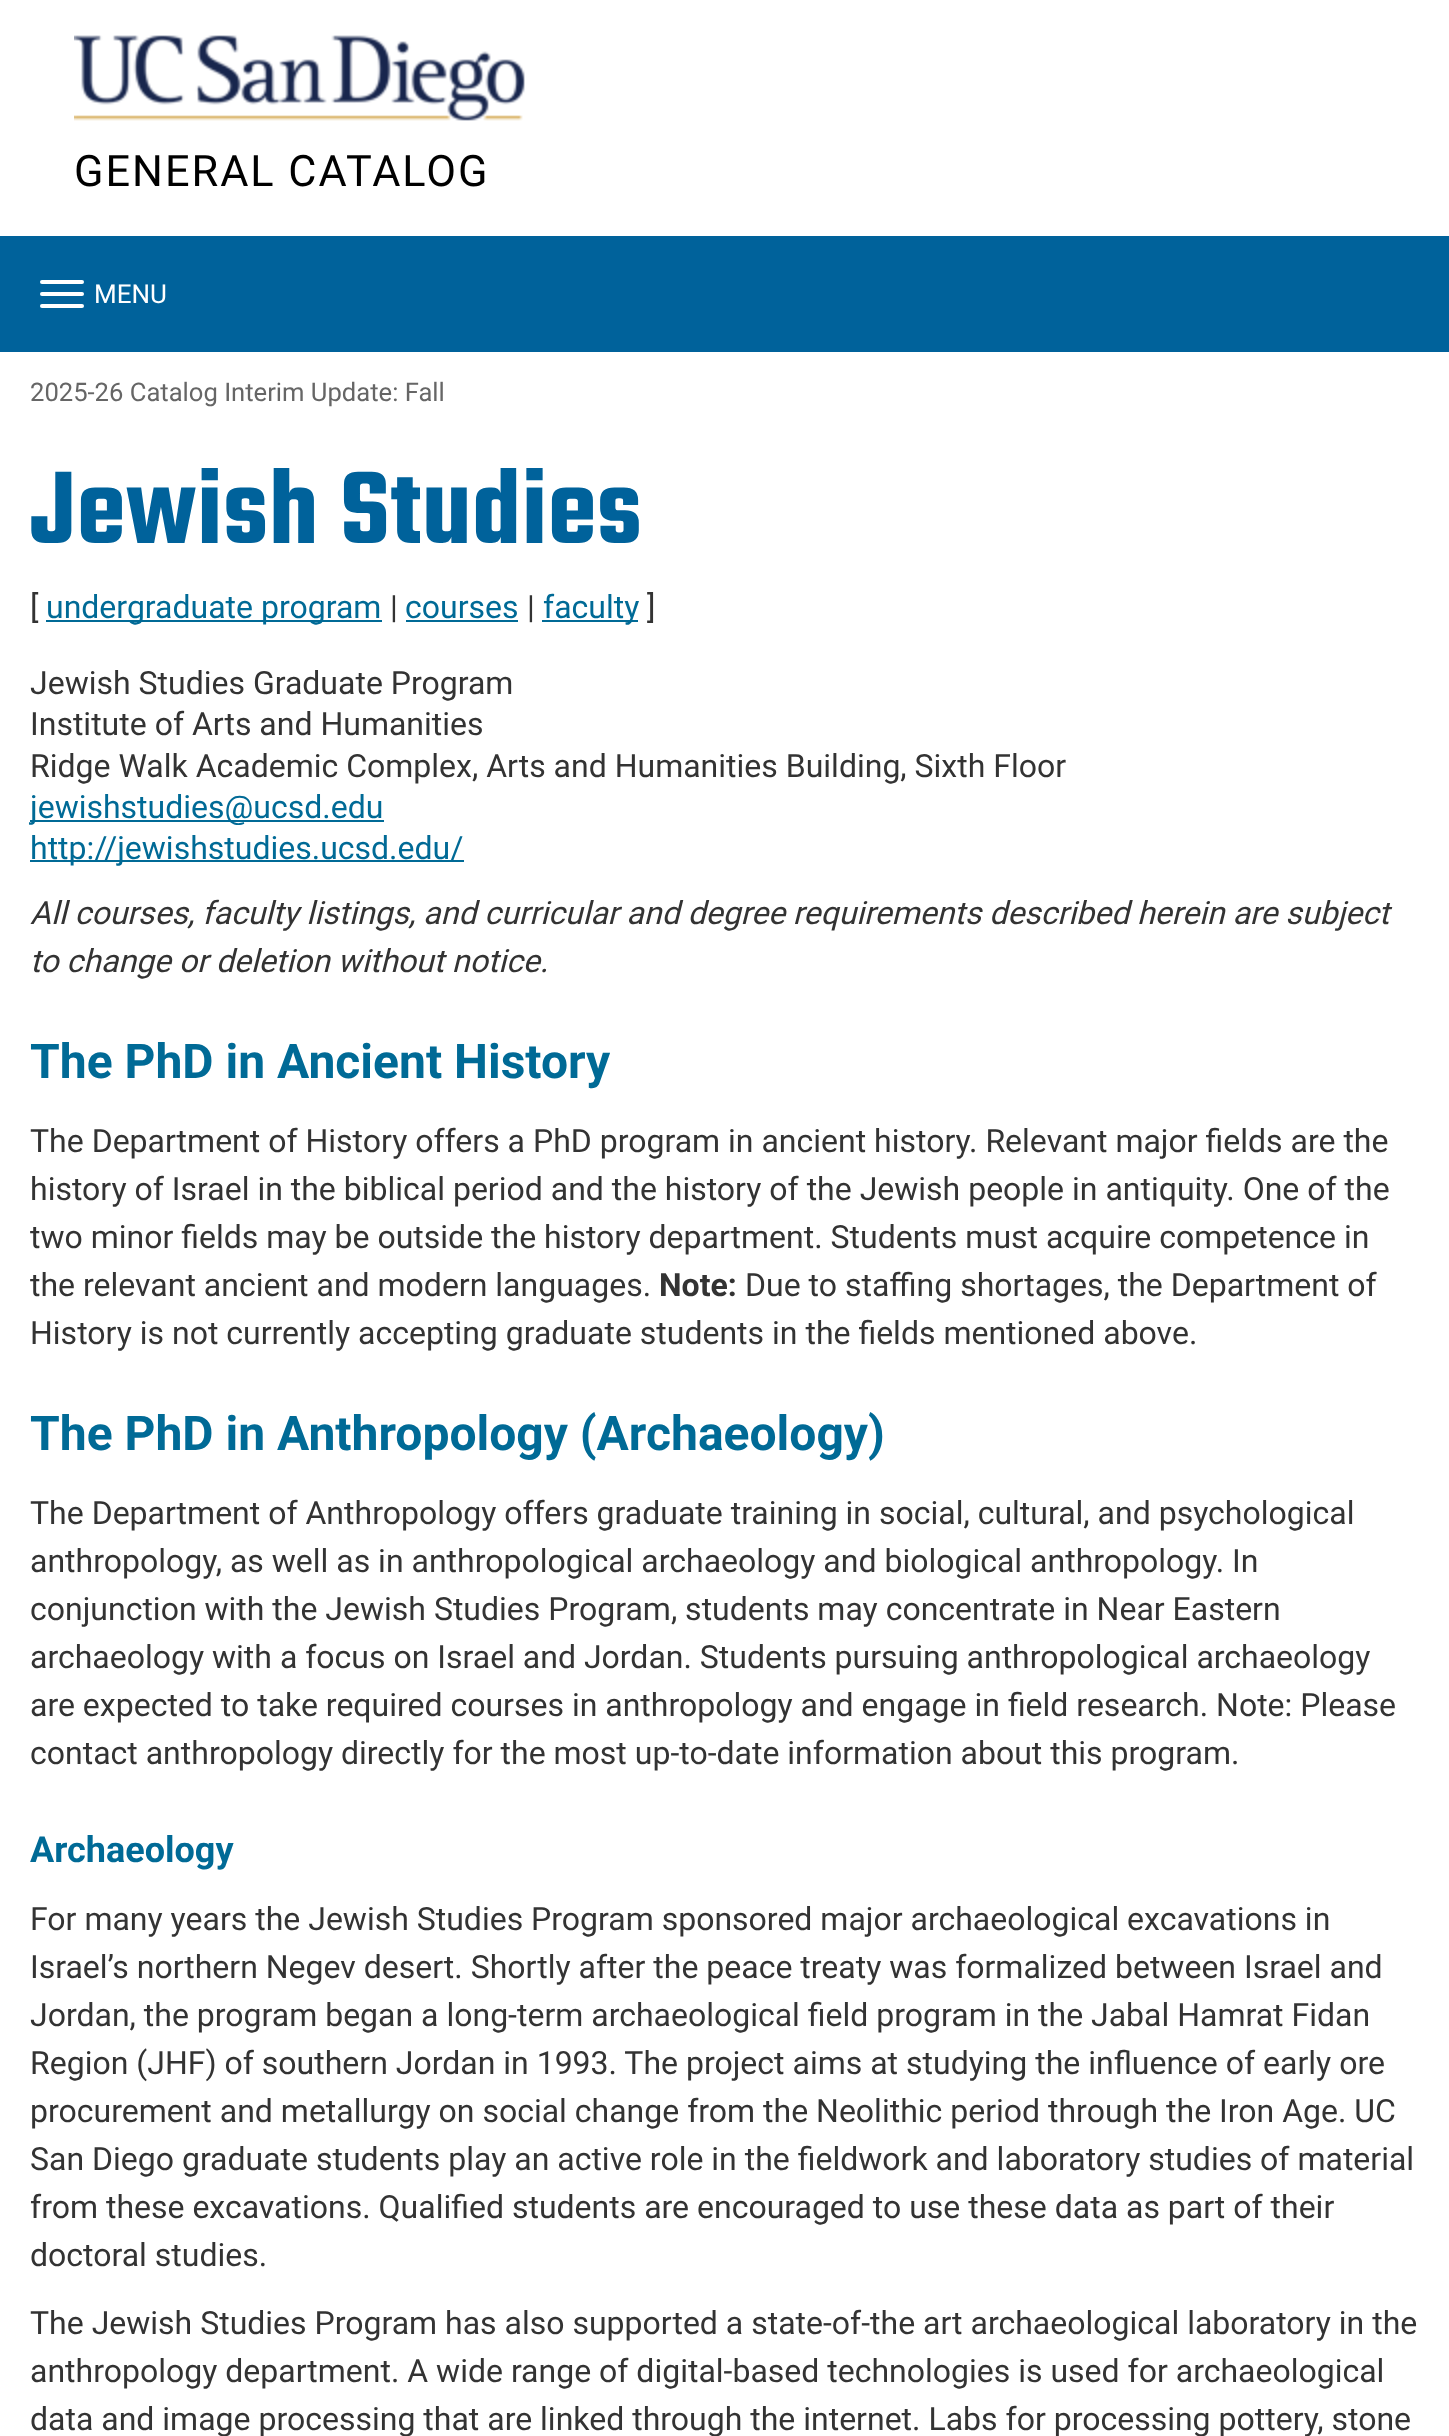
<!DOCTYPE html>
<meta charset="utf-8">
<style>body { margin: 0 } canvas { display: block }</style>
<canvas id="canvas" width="1449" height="2436"></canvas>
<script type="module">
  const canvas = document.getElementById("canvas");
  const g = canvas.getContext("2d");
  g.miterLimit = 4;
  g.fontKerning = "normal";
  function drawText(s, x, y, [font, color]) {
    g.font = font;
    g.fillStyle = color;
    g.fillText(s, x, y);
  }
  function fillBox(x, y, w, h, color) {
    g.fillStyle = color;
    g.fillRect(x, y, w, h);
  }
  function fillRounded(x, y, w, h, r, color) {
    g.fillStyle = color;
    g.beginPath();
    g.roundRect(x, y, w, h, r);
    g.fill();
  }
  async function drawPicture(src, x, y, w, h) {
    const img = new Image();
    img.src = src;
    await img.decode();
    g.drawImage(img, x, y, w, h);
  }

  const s1 = ["43.25px Roboto", "#000000"];
  const s2 = ["26px Roboto", "#FFFFFF"];
  const s3 = ["25.6px Roboto", "#666666"];
  const s4 = ["600 112px Teko", "#00629B"];
  const s5 = ["32px Roboto", "#333333"];
  const s6 = ["32px Roboto", "#006A96"];
  const s7 = ["italic 32px Roboto", "#333333"];
  const s8 = ["bold 48px Roboto", "#006A96"];
  const s9 = ["bold 32px Roboto", "#333333"];
  const s10 = ["bold 36px Roboto", "#006A96"];

  fillBox(0, 0, 1449, 2436, "#FFFFFF");
  await drawPicture("pic1.png", 74, 35, 451, 86);
  g.letterSpacing = "2px";
  drawText("GENERAL CATALOG", 74, 186, s1);
  fillBox(0, 236, 1449, 116, "#00629B");
  fillRounded(40, 280, 44, 4, 2, "#FFFFFF");
  fillRounded(40, 292, 44, 4, 2, "#FFFFFF");
  fillRounded(40, 304, 44, 4, 2, "#FFFFFF");
  g.letterSpacing = "0px";
  drawText("MENU", 94, 303, s2);
  drawText("2025-26 Catalog Interim Update: Fall", 30, 401, s3);
  g.letterSpacing = "1px";
  drawText("Jewish Studies", 30, 543, s4);
  g.letterSpacing = "0px";
  drawText("[", 30, 618, s5);
  fillBox(46, 620, 336, 2, "#006A96");
  drawText("undergraduate program", 46, 618, s6);
  drawText("|", 390, 618, s5);
  drawText("courses", 405, 618, s6);
  fillBox(406, 620, 112, 2, "#006A96");
  drawText("|", 527, 618, s5);
  fillBox(542, 620, 96, 2, "#006A96");
  drawText("faculty", 543, 618, s6);
  drawText("]", 647, 618, s5);
  drawText("Jewish Studies Graduate Program", 30, 694, s5);
  drawText("Institute of Arts and Humanities", 30, 735, s5);
  drawText("Ridge Walk Academic Complex, Arts and Humanities Building, Sixth Floor", 30, 777, s5);
  fillBox(30, 820, 354, 2, "#006A96");
  drawText("jewishstudies@ucsd.edu", 30, 818, s6);
  fillBox(30, 860, 434, 2, "#006A96");
  drawText("http://jewishstudies.ucsd.edu/", 30, 859, s6);
  drawText("All courses, faculty listings, and curricular and degree requirements described herein are subject", 30, 924, s7);
  drawText("to change or deletion without notice.", 30, 972, s7);
  drawText("The PhD in Ancient History", 30, 1078, s8);
  drawText("The Department of History offers a PhD program in ancient history. Relevant major fields are the", 30, 1152, s5);
  drawText("history of Israel in the biblical period and the history of the Jewish people in antiquity. One of the", 30, 1200, s5);
  drawText("two minor fields may be outside the history department. Students must acquire competence in", 30, 1248, s5);
  drawText("the relevant ancient and modern languages.", 30, 1296, s5);
  drawText("Note:", 659, 1296, s9);
  drawText("Due to staffing shortages, the Department of", 745, 1296, s5);
  drawText("History is not currently accepting graduate students in the fields mentioned above.", 30, 1344, s5);
  drawText("The PhD in Anthropology (Archaeology)", 30, 1450, s8);
  drawText("The Department of Anthropology offers graduate training in social, cultural, and psychological", 30, 1524, s5);
  drawText("anthropology, as well as in anthropological archaeology and biological anthropology. In", 30, 1572, s5);
  drawText("conjunction with the Jewish Studies Program, students may concentrate in Near Eastern", 30, 1620, s5);
  drawText("archaeology with a focus on Israel and Jordan. Students pursuing anthropological archaeology", 30, 1668, s5);
  drawText("are expected to take required courses in anthropology and engage in field research. Note: Please", 30, 1716, s5);
  drawText("contact anthropology directly for the most up-to-date information about this program.", 30, 1764, s5);
  drawText("Archaeology", 30, 1862, s10);
  drawText("For many years the Jewish Studies Program sponsored major archaeological excavations in", 30, 1930, s5);
  drawText("Israel’s northern Negev desert. Shortly after the peace treaty was formalized between Israel and", 30, 1978, s5);
  drawText("Jordan, the program began a long-term archaeological field program in the Jabal Hamrat Fidan", 30, 2026, s5);
  drawText("Region (JHF) of southern Jordan in 1993. The project aims at studying the influence of early ore", 30, 2074, s5);
  drawText("procurement and metallurgy on social change from the Neolithic period through the Iron Age. UC", 30, 2122, s5);
  drawText("San Diego graduate students play an active role in the fieldwork and laboratory studies of material", 30, 2170, s5);
  drawText("from these excavations. Qualified students are encouraged to use these data as part of their", 30, 2218, s5);
  drawText("doctoral studies.", 30, 2266, s5);
  drawText("The Jewish Studies Program has also supported a state-of-the art archaeological laboratory in the", 30, 2334, s5);
  drawText("anthropology department. A wide range of digital-based technologies is used for archaeological", 30, 2382, s5);
  drawText("data and image processing that are linked through the internet. Labs for processing pottery, stone", 30, 2430, s5);
</script>
